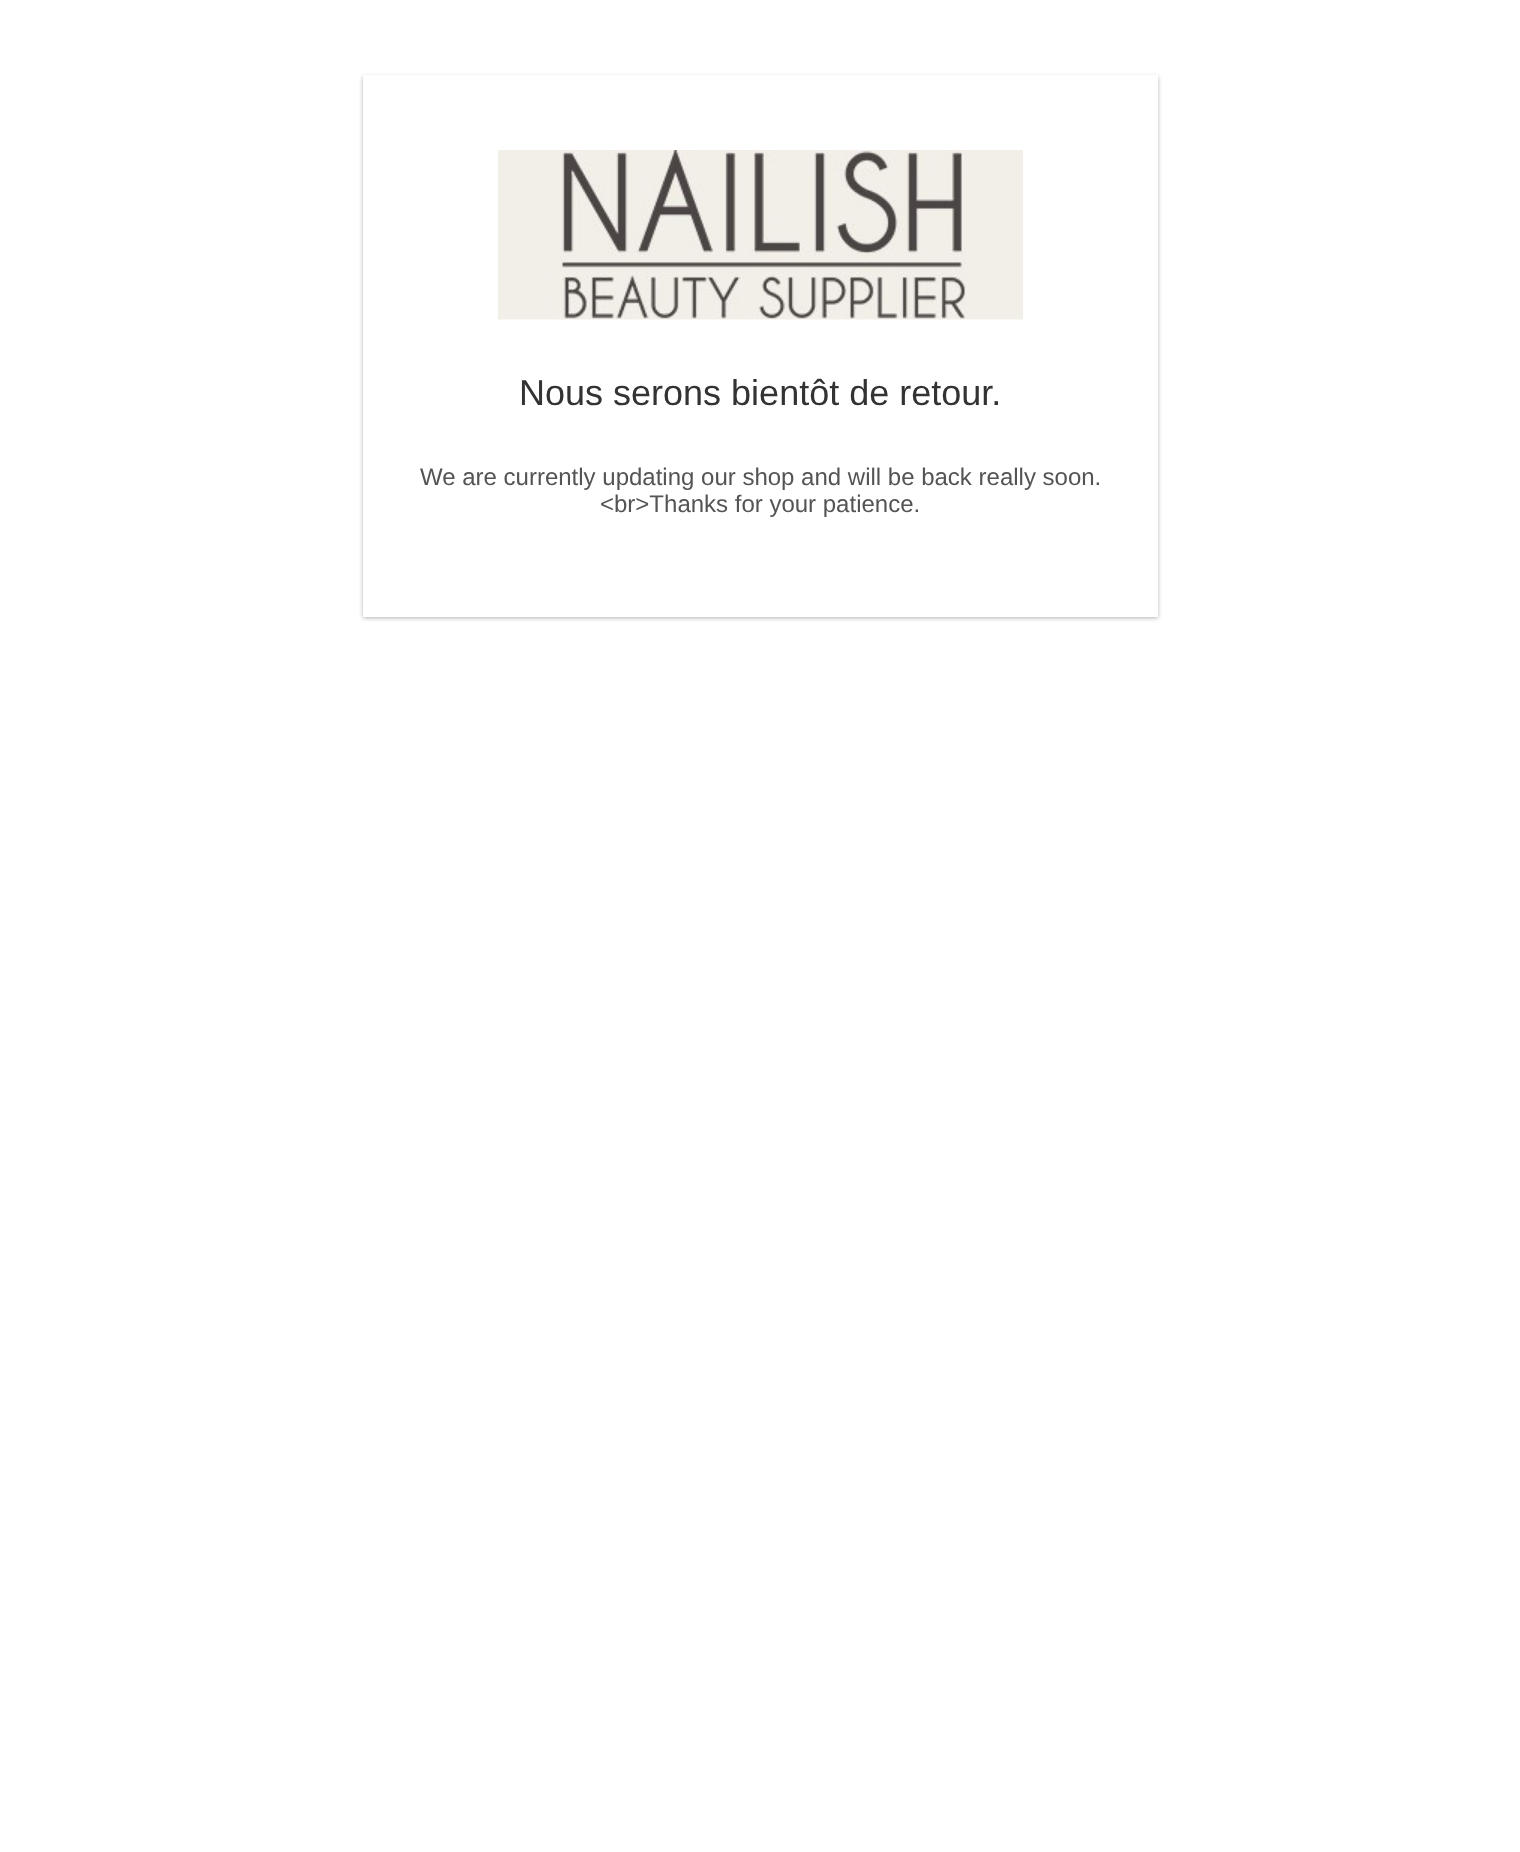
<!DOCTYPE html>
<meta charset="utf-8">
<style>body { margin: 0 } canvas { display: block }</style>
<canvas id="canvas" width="1520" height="1852"></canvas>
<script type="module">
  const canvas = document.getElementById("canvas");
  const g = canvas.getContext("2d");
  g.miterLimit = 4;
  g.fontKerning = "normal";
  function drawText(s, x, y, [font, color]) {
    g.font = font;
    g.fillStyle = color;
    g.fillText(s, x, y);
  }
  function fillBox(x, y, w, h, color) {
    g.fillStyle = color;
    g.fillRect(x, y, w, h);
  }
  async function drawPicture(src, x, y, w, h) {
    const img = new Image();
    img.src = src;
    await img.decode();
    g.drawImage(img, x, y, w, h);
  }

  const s1 = ["36px Liberation Sans", "#333333"];
  const s2 = ["24px Liberation Sans", "#555454"];

  fillBox(0, 0, 1520, 1852, "#FFFFFF");
  g.fillStyle = "rgba(0, 0, 0, 0.3)";
  g.filter = "blur(2px)";
  g.beginPath();
  g.rect(363, 77, 795, 541);
  g.fill();
  g.filter = "none";
  fillBox(363, 75, 795, 542, "#FFFFFF");
  await drawPicture("pic1.png", 498, 150, 525, 170);
  drawText("Nous serons bientôt de retour.", 519, 405, s1);
  drawText("We are currently updating our shop and will be back really soon.", 420, 485, s2);
  drawText("<br>Thanks for your patience.", 600, 512, s2);
</script>
